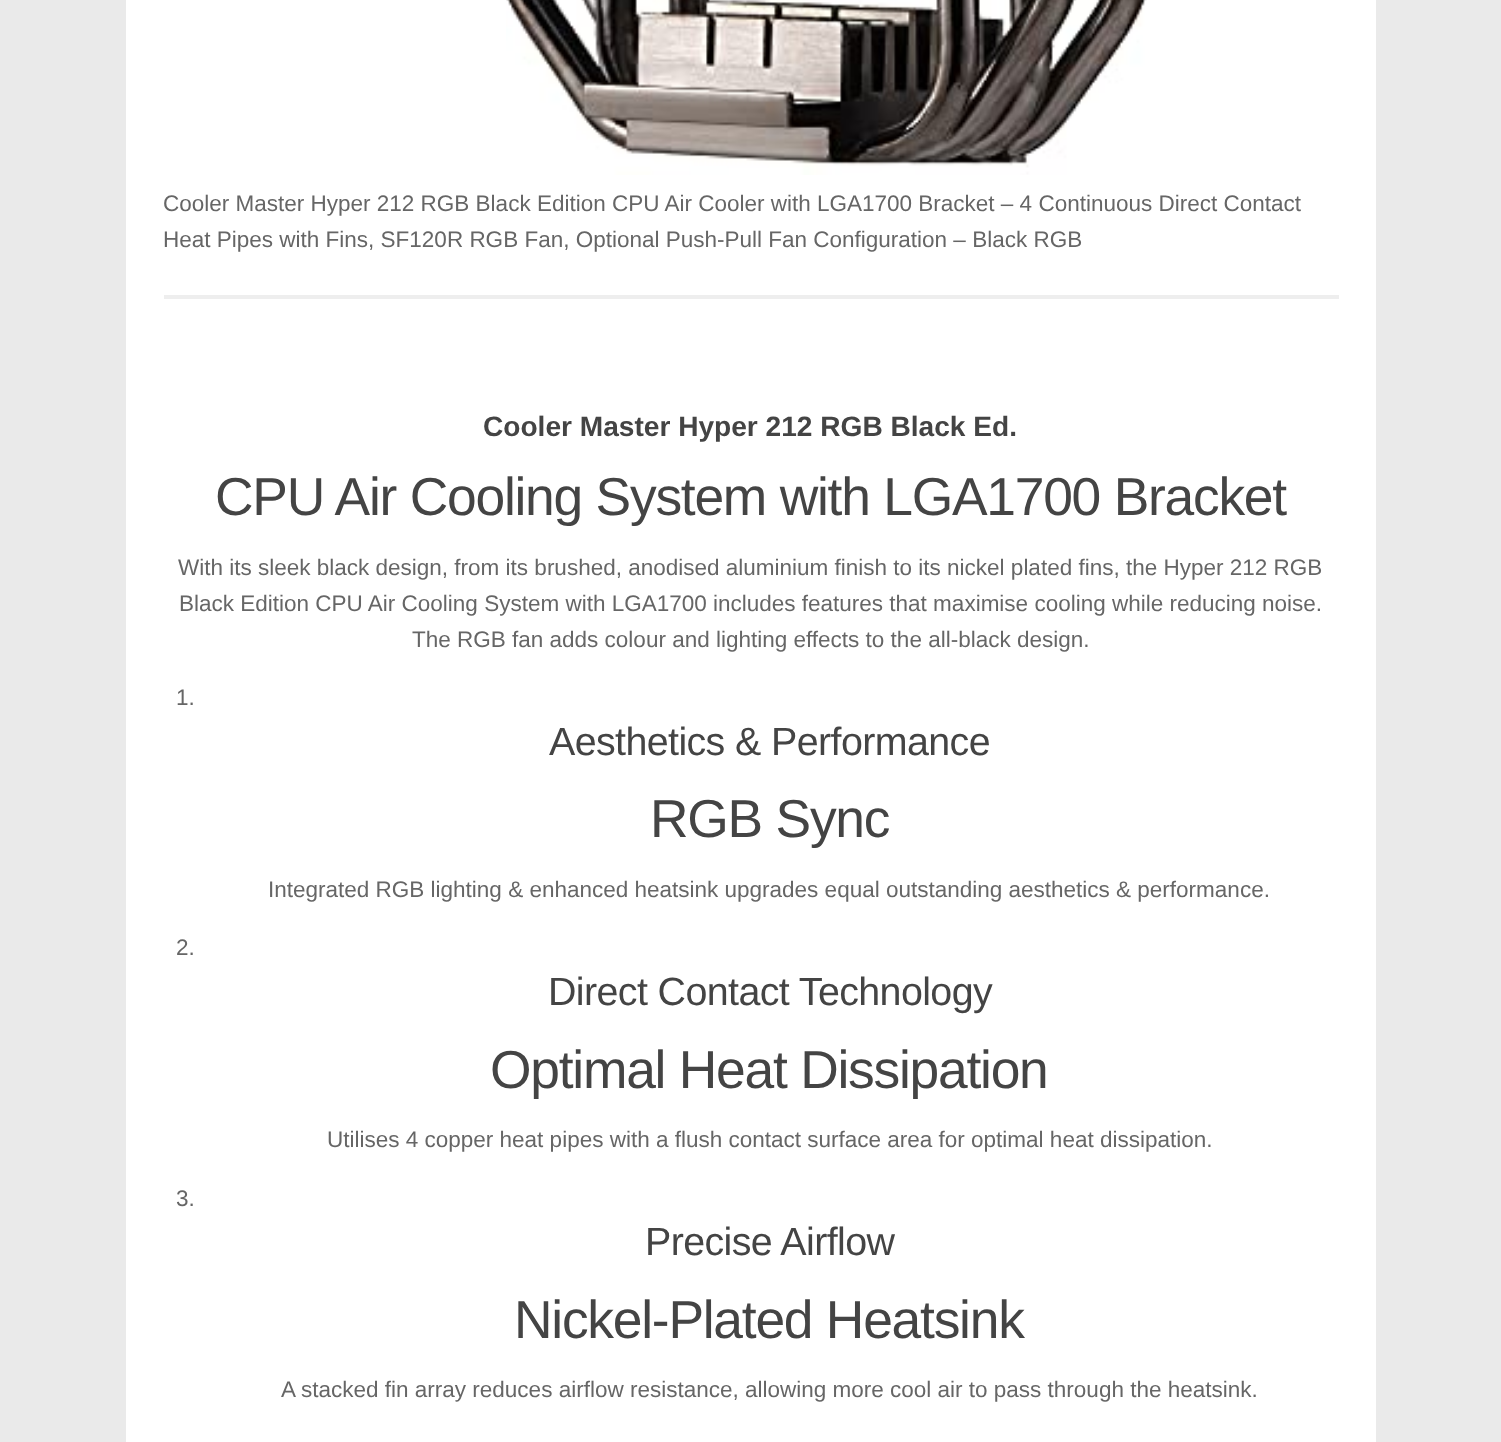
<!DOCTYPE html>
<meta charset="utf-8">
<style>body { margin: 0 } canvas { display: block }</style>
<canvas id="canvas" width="1501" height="1442"></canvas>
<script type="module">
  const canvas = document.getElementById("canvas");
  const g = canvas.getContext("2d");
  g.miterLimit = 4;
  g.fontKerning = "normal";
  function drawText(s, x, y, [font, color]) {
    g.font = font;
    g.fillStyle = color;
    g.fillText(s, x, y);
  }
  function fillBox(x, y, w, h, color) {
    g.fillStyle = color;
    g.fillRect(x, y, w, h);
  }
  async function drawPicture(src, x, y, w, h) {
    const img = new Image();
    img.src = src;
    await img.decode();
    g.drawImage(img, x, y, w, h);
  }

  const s1 = ["22.5px Liberation Sans", "#666666"];
  const s2 = ["bold 28.1px Liberation Sans", "#444444"];
  const s3 = ["53.4px Liberation Sans", "#444444"];
  const s4 = ["39.4px Liberation Sans", "#444444"];

  fillBox(0, 0, 1501, 1442, "#EAEAEA");
  fillBox(126, 0, 1250, 1442, "#FFFFFF");
  await drawPicture("pic1.png", 506, 0, 641, 175);
  drawText("Cooler Master Hyper 212 RGB Black Edition CPU Air Cooler with LGA1700 Bracket – 4 Continuous Direct Contact", 163, 211, s1);
  drawText("Heat Pipes with Fins, SF120R RGB Fan, Optional Push-Pull Fan Configuration – Black RGB", 163, 247, s1);
  fillBox(164, 295, 1175, 4, "#EEEEEE");
  drawText("Cooler Master Hyper 212 RGB Black Ed.", 483, 436, s2);
  g.letterSpacing = "-1.25px";
  drawText("CPU Air Cooling System with LGA1700 Bracket", 215, 515, s3);
  g.letterSpacing = "0px";
  drawText("With its sleek black design, from its brushed, anodised aluminium finish to its nickel plated fins, the Hyper 212 RGB", 178, 575, s1);
  drawText("Black Edition CPU Air Cooling System with LGA1700 includes features that maximise cooling while reducing noise.", 179, 611, s1);
  drawText("The RGB fan adds colour and lighting effects to the all-black design.", 412, 647, s1);
  drawText("1.", 176, 705, s1);
  g.letterSpacing = "-0.6px";
  drawText("Aesthetics & Performance", 549, 755, s4);
  g.letterSpacing = "-1.25px";
  drawText("RGB Sync", 650, 837, s3);
  g.letterSpacing = "0px";
  drawText("Integrated RGB lighting & enhanced heatsink upgrades equal outstanding aesthetics & performance.", 268, 897, s1);
  drawText("2.", 176, 955, s1);
  g.letterSpacing = "-0.6px";
  drawText("Direct Contact Technology", 548, 1005, s4);
  g.letterSpacing = "-1.25px";
  drawText("Optimal Heat Dissipation", 490, 1088, s3);
  g.letterSpacing = "0px";
  drawText("Utilises 4 copper heat pipes with a flush contact surface area for optimal heat dissipation.", 327, 1147, s1);
  drawText("3.", 176, 1206, s1);
  g.letterSpacing = "-0.6px";
  drawText("Precise Airflow", 645, 1255, s4);
  g.letterSpacing = "-1.25px";
  drawText("Nickel-Plated Heatsink", 514, 1338, s3);
  g.letterSpacing = "0px";
  drawText("A stacked fin array reduces airflow resistance, allowing more cool air to pass through the heatsink.", 281, 1397, s1);
</script>
